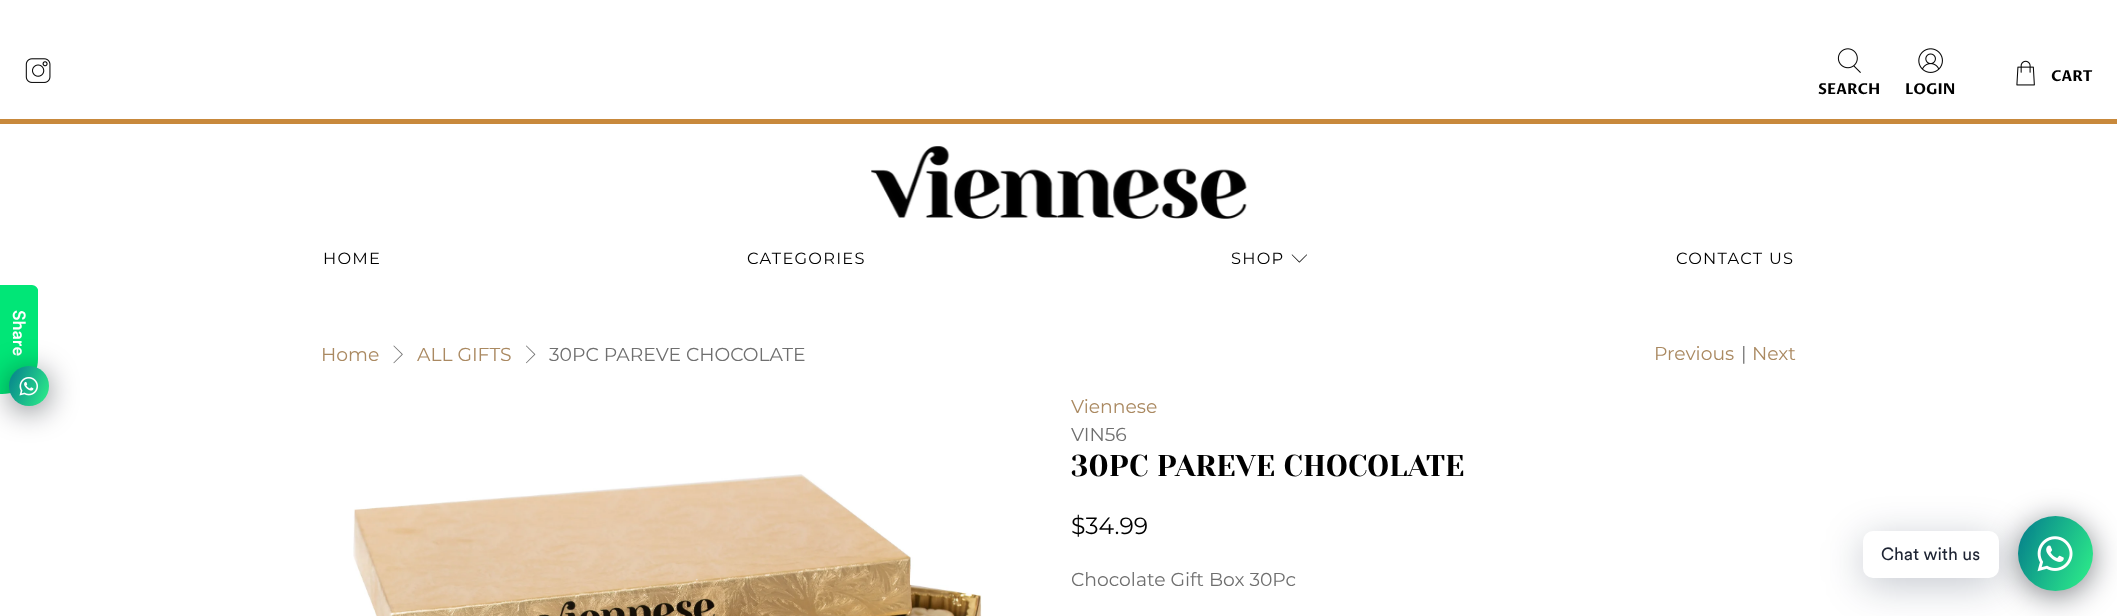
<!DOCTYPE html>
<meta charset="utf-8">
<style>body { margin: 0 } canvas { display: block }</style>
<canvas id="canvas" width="2117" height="616"></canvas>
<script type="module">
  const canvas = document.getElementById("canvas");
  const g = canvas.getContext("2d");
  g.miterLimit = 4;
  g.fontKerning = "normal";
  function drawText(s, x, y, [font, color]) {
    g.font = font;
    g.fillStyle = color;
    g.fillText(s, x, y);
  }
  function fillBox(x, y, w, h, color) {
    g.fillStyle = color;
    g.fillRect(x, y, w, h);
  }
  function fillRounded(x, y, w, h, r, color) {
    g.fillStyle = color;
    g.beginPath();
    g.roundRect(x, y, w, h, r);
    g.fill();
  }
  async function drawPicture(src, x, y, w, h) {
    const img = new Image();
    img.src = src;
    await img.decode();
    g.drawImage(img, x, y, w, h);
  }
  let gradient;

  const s1 = ["bold 15px Proza Libre", "#000000"];
  const s2 = ["16.25px Montserrat", "#000000"];
  const s3 = ["17.5px Circular", "#1E2433"];
  const s4 = ["18.75px Montserrat", "#AA8961"];
  const s5 = ["18.75px Montserrat", "#6F6F6F"];
  const s6 = ["30px Yeseva One", "#000000"];
  const s7 = ["23.5px Montserrat", "#000000"];

  fillBox(0, 0, 2117, 616, "#FFFFFF");
  fillBox(0, 119, 2117, 5, "#C8893C");
  await drawPicture("pic1.png", 25, 58, 26, 25);
  await drawPicture("pic2.png", 2016, 60, 19, 26);
  drawText("CART", 2051, 81, s1);
  await drawPicture("pic3.png", 1837, 48, 24, 25);
  drawText("SEARCH", 1818, 94, s1);
  await drawPicture("pic4.png", 1918, 48, 25, 25);
  drawText("LOGIN", 1905, 94, s1);
  await drawPicture("pic5.png", 871, 146, 376, 73);
  g.letterSpacing = "1.25px";
  drawText("HOME", 323, 264, s2);
  drawText("CATEGORIES", 747, 264, s2);
  drawText("SHOP", 1231, 264, s2);
  await drawPicture("pic6.png", 1291, 254, 16, 9);
  drawText("CONTACT US", 1676, 264, s2);
  g.fillStyle = "#01E677";
  g.beginPath();
  g.moveTo(0, 394);
  g.lineTo(0, 285);
  g.lineTo(32, 285);
  g.bezierCurveTo(35, 285, 38, 288, 38, 290);
  g.lineTo(38, 359);
  g.bezierCurveTo(38, 378, 22, 394, 2, 394);
  g.closePath();
  g.fill();
  g.letterSpacing = "0px";
  g.font = "500 17.5px Circular";
  g.fillStyle = "#FFFFFF";
  g.save();
  g.translate(13, 310);
  g.rotate(90 * Math.PI / 180);
  g.fillText("Share", 0, 0);
  g.restore();
  g.fillStyle = "rgba(2, 6, 16, 0.5)";
  g.filter = "blur(15px)";
  g.beginPath();
  g.roundRect(9, 371, 40, 40, 20);
  g.fill();
  g.filter = "none";
  gradient = g.createLinearGradient(4.7, 375, 53, 397);
  gradient.addColorStop(0, "#047C8D");
  gradient.addColorStop(1, "#2FF289");
  g.fillStyle = gradient;
  g.beginPath();
  g.arc(29, 386, 20, 0, Math.PI * 2);
  g.fill();
  await drawPicture("pic7.png", 19, 377, 19, 19);
  g.fillStyle = "rgba(2, 6, 16, 0.5)";
  g.filter = "blur(15px)";
  g.beginPath();
  g.roundRect(2018, 521, 75, 75, 37.5);
  g.fill();
  g.filter = "none";
  gradient = g.createLinearGradient(2010, 533, 2100, 575);
  gradient.addColorStop(0, "#047C8D");
  gradient.addColorStop(1, "#2FF289");
  g.fillStyle = gradient;
  g.beginPath();
  g.arc(2055.5, 553.5, 37.5, 0, Math.PI * 2);
  g.fill();
  g.fillStyle = "rgba(0, 18, 46, 0.24)";
  g.filter = "blur(20px)";
  g.beginPath();
  g.roundRect(1863, 539, 136, 46, 10);
  g.fill();
  g.filter = "none";
  fillRounded(1863, 531, 136, 47, 10, "#FFFFFF");
  drawText("Chat with us", 1881, 560, s3);
  await drawPicture("pic8.png", 2037, 536, 36, 36);
  drawText("Home", 321, 361, s4);
  await drawPicture("pic9.png", 393, 345, 10, 19);
  drawText("ALL GIFTS", 417, 361, s4);
  await drawPicture("pic10.png", 526, 345, 10, 19);
  drawText("30PC PAREVE CHOCOLATE", 549, 361, s5);
  drawText("Previous", 1654, 360, s4);
  drawText("|", 1741, 360, s5);
  drawText("Next", 1752, 360, s4);
  await drawPicture("pic11.png", 353, 474, 629, 142);
  drawText("Viennese", 1071, 413, s4);
  drawText("VIN56", 1071, 441, s5);
  drawText("30PC PAREVE CHOCOLATE", 1071, 476, s6);
  drawText("$34.99", 1071, 534, s7);
  drawText("Chocolate Gift Box 30Pc", 1071, 586, s5);
</script>
